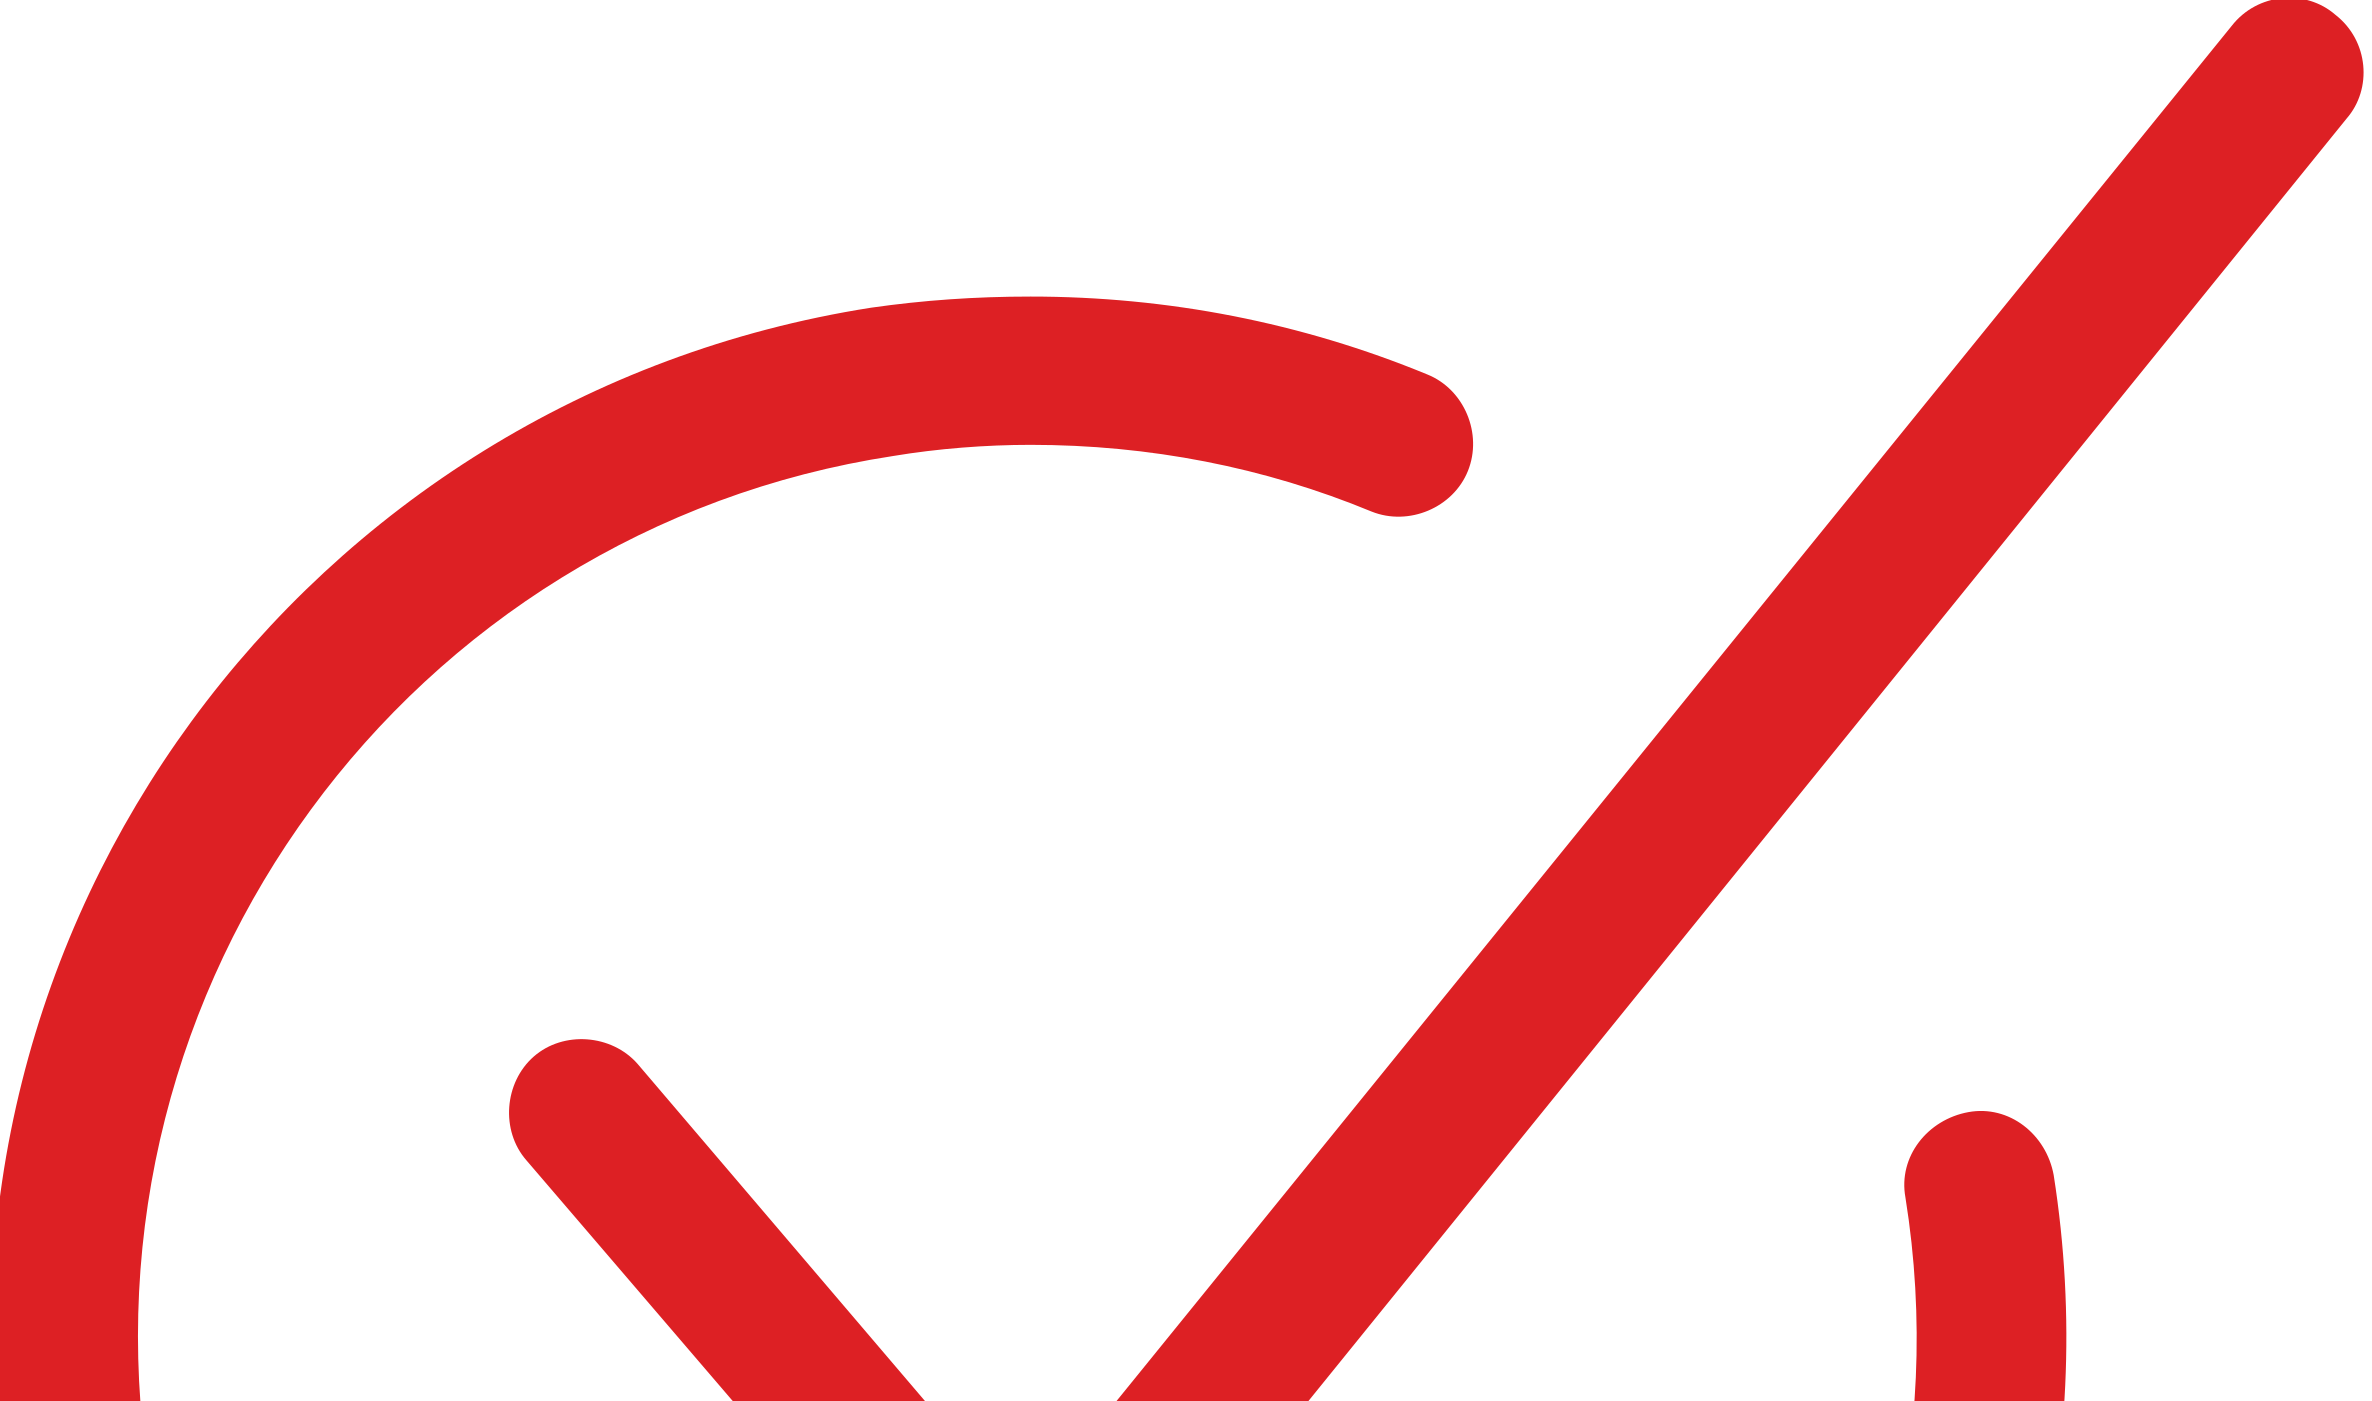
<!DOCTYPE html>
<meta charset="utf-8">
<style>body { margin: 0 } canvas { display: block }</style>
<canvas id="canvas" width="2372" height="1401"></canvas>
<script type="module">
  const canvas = document.getElementById("canvas");
  const g = canvas.getContext("2d");
  g.miterLimit = 4;
  g.fontKerning = "normal";
  function fillBox(x, y, w, h, color) {
    g.fillStyle = color;
    g.fillRect(x, y, w, h);
  }
  async function drawPicture(src, x, y, w, h) {
    const img = new Image();
    img.src = src;
    await img.decode();
    g.drawImage(img, x, y, w, h);
  }

  fillBox(0, 0, 2372, 1401, "#FFFFFF");
  await drawPicture("pic1.png", 0, 0, 2364, 1401);
</script>
